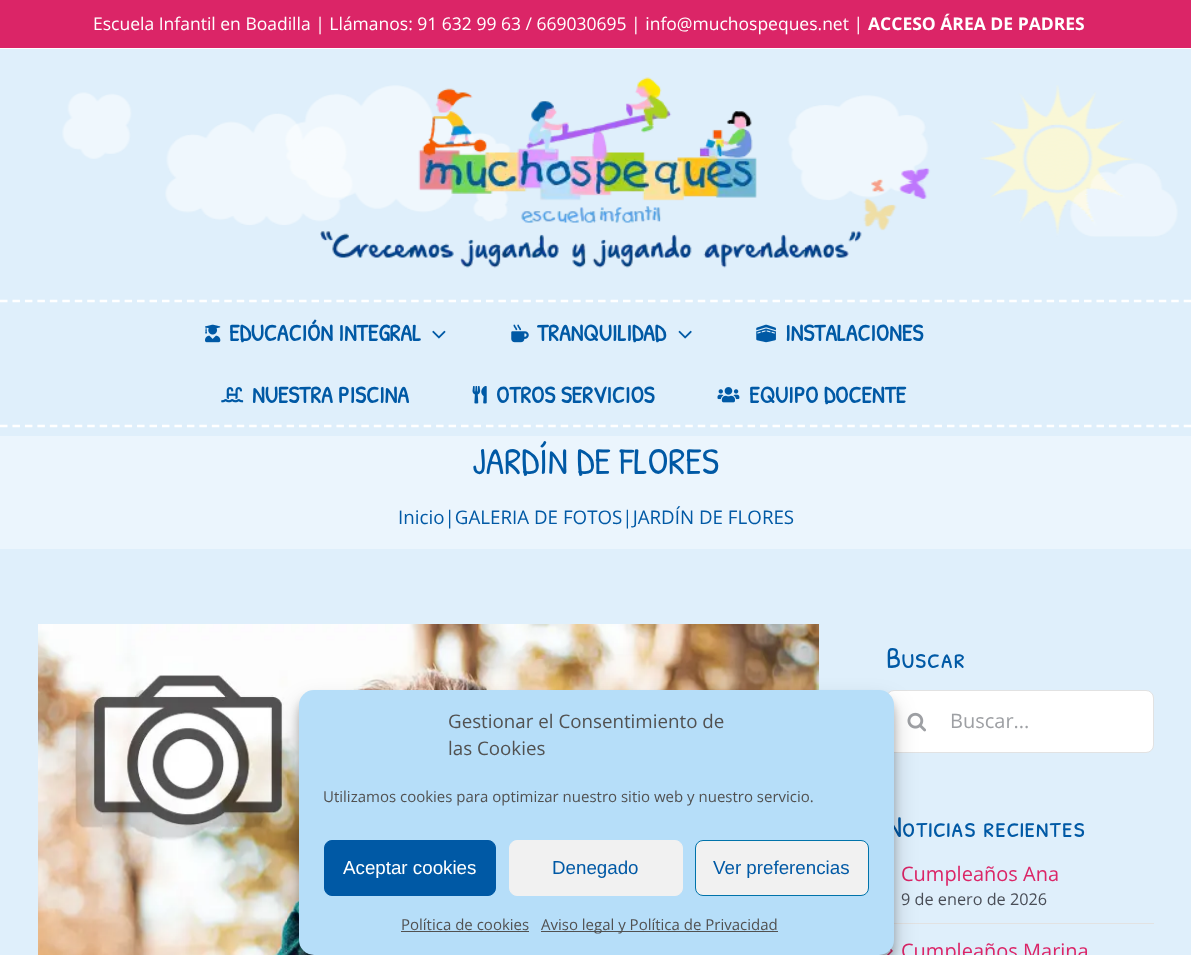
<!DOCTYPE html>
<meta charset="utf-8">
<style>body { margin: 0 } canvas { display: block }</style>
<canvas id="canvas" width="1191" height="955"></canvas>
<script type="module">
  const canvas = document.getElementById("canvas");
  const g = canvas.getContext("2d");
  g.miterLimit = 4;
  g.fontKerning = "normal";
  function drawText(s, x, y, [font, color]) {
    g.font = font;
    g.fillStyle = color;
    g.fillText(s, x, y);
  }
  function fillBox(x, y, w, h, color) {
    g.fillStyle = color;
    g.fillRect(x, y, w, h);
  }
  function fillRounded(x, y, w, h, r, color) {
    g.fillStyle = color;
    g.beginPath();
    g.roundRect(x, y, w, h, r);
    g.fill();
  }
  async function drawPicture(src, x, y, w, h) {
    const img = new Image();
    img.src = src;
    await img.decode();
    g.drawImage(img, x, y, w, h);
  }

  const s1 = ["17.5px Open Sans", "#FFFFFF"];
  const s2 = ["bold 17.5px Open Sans", "#FFFFFF"];
  const s3 = ["bold 23.75px Patrick Hand SC", "#0059A5"];
  const s4 = ["37.5px Patrick Hand SC", "#0059A5"];
  const s5 = ["18.75px Open Sans", "#0059A5"];
  const s6 = ["30px Patrick Hand SC", "#0059A5"];
  const s7 = ["20px Open Sans", "#9EA0A4"];
  const s8 = ["20px Open Sans", "#DB2567"];
  const s9 = ["16.25px Open Sans", "#4A4E57"];
  const s10 = ["18.75px Open Sans", "#515151"];
  const s11 = ["15px Open Sans", "#515151"];
  const s12 = ["18.75px Liberation Sans", "#FFFFFF"];
  const s13 = ["18.75px Liberation Sans", "#0059A5"];

  fillBox(0, 0, 1191, 955, "#DFEFFB");
  fillBox(0, 0, 1191, 48, "#DB2567");
  fillBox(0, 48, 1191, 1, "#FFFFFF");
  drawText("Escuela Infantil en Boadilla | Llámanos: 91 632 99 63 / 669030695 | info@muchospeques.net |", 93, 30, s1);
  drawText("ACCESO ÁREA DE PADRES", 868, 30, s2);
  await drawPicture("pic1.png", 62, 85, 1116, 152);
  g.beginPath();
  g.moveTo(0, 301);
  g.lineTo(1191, 301);
  g.strokeStyle = "#FFFFFF";
  g.lineWidth = 2.5;
  g.setLineDash([7.5, 4.96]);
  g.stroke();
  await drawPicture("pic2.png", 320, 77, 542, 191);
  g.beginPath();
  g.moveTo(0, 426);
  g.lineTo(1191, 426);
  g.stroke();
  await drawPicture("pic3.png", 205, 324, 16, 19);
  drawText("EDUCACIÓN INTEGRAL", 229, 341, s3);
  await drawPicture("pic4.png", 432, 330, 14, 9);
  await drawPicture("pic5.png", 511, 324, 18, 19);
  drawText("TRANQUILIDAD", 537, 341, s3);
  await drawPicture("pic6.png", 678, 330, 14, 9);
  await drawPicture("pic7.png", 756, 324, 20, 19);
  drawText("INSTALACIONES", 785, 341, s3);
  await drawPicture("pic8.png", 221, 387, 23, 16);
  drawText("NUESTRA PISCINA", 252, 403, s3);
  await drawPicture("pic9.png", 472, 386, 15, 18);
  drawText("OTROS SERVICIOS", 496, 403, s3);
  await drawPicture("pic10.png", 717, 387, 23, 16);
  drawText("EQUIPO DOCENTE", 749, 403, s3);
  fillBox(0, 436, 1191, 113, "#EBF5FD");
  drawText("JARDÍN DE FLORES", 472, 474, s4);
  drawText("Inicio|GALERIA DE FOTOS|JARDÍN DE FLORES", 398, 524, s5);
  await drawPicture("pic11.png", 38, 624, 781, 331);
  drawText("Buscar", 886, 668, s6);
  g.fillStyle = "#FFFFFF";
  g.beginPath();
  g.roundRect(886.5, 690.5, 267, 62, 7.5);
  g.fill();
  g.strokeStyle = "#E2E2E2";
  g.lineWidth = 1;
  g.setLineDash([]);
  g.stroke();
  await drawPicture("pic12.png", 907, 712, 19, 20);
  drawText("Buscar...", 950, 728, s7);
  drawText("Noticias recientes", 886, 837, s6);
  fillBox(886, 923, 268, 1, "#E2E2E2");
  drawText("Cumpleaños Ana", 901, 881, s8);
  drawText("9 de enero de 2026", 901, 905, s9);
  await drawPicture("pic13.png", 886, 949, 7, 6);
  drawText("Cumpleaños Marina", 901, 958, s8);
  g.fillStyle = "rgba(0, 0, 0, 0.23)";
  g.filter = "blur(4px)";
  g.beginPath();
  g.roundRect(299, 698, 595, 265, 15);
  g.fill();
  g.filter = "none";
  g.fillStyle = "rgba(0, 0, 0, 0.19)";
  g.filter = "blur(12.5px)";
  g.beginPath();
  g.roundRect(299, 703, 595, 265, 15);
  g.fill();
  g.filter = "none";
  fillRounded(299, 690, 595, 265, 15, "#B6DEF9");
  drawText("Gestionar el Consentimiento de", 448, 728, s10);
  drawText("las Cookies", 448, 755, s10);
  drawText("Utilizamos cookies para optimizar nuestro sitio web y nuestro servicio.", 323, 802, s11);
  g.fillStyle = "#0059A5";
  g.beginPath();
  g.roundRect(324.5, 840.5, 171, 55, 7.5);
  g.fill();
  g.strokeStyle = "#0059A5";
  g.stroke();
  drawText("Aceptar cookies", 343, 874, s12);
  g.fillStyle = "#F1F1F1";
  g.beginPath();
  g.roundRect(509.5, 840.5, 173, 55, 7.5);
  g.fill();
  g.strokeStyle = "#F1F1F1";
  g.stroke();
  drawText("Denegado", 552, 874, s13);
  g.fillStyle = "#F1F1F1";
  g.beginPath();
  g.roundRect(695.5, 840.5, 173, 55, 7.5);
  g.fill();
  g.strokeStyle = "#0073AA";
  g.stroke();
  drawText("Ver preferencias", 713, 874, s13);
  drawText("Política de cookies", 401, 930, s11);
  fillBox(401, 931, 128, 1, "#515151");
  fillBox(541, 931, 237, 1, "#515151");
  drawText("Aviso legal y Política de Privacidad", 541, 930, s11);
</script>
